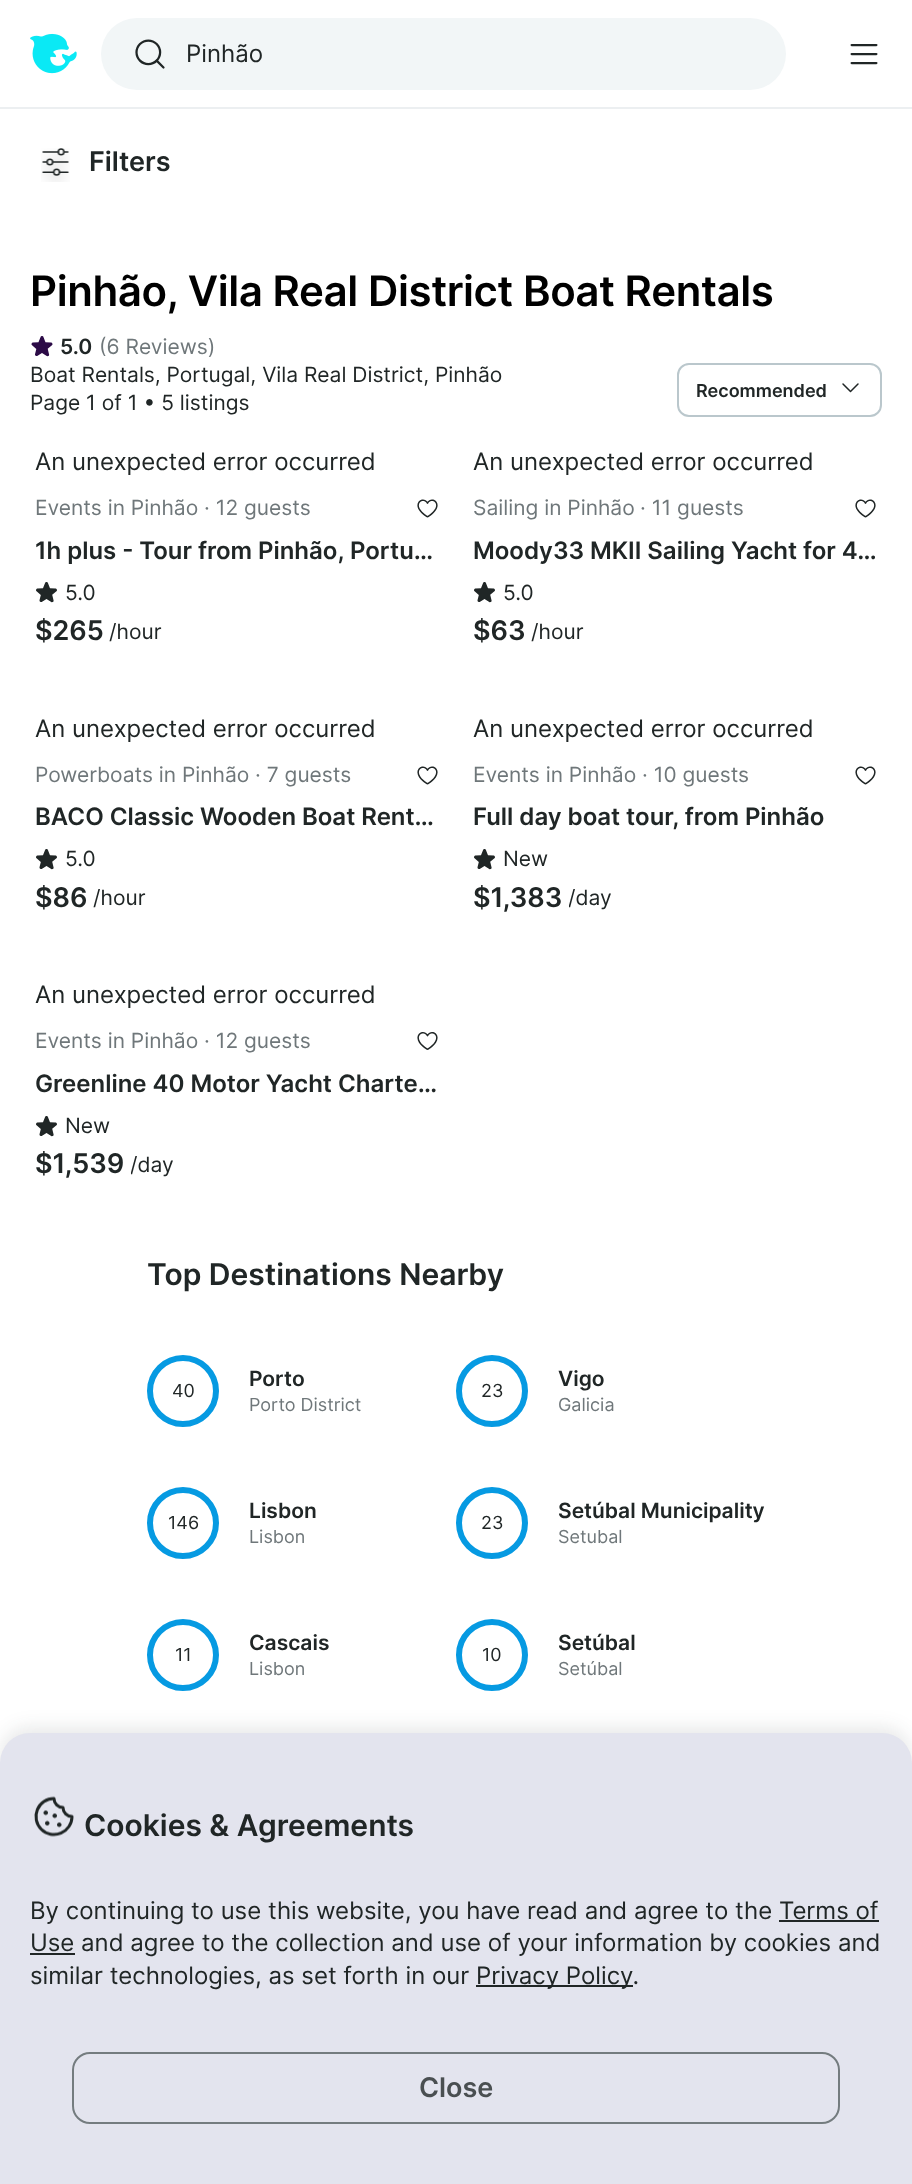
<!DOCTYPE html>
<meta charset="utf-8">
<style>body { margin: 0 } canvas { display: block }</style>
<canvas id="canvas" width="912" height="2184"></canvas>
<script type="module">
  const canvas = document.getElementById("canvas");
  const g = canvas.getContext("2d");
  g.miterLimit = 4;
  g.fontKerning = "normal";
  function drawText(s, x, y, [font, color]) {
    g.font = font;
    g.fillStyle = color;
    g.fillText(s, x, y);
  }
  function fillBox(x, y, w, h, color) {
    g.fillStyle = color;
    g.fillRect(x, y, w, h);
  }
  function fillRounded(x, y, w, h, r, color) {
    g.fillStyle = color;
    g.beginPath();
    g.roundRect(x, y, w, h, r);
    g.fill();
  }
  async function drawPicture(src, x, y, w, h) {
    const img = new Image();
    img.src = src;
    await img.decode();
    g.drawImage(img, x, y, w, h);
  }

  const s1 = ["24px Inter", "#202626"];
  const s2 = ["600 27px Inter", "#202626"];
  const s3 = ["600 42px Inter", "#000000"];
  const s4 = ["600 21px Inter", "#202626"];
  const s5 = ["21px Inter", "#6F777A"];
  const s6 = ["21px Inter", "#202626"];
  const s7 = ["600 18px Inter", "#202626"];
  const s8 = ["600 24px Inter", "#202626"];
  const s9 = ["600 30px Inter", "#202626"];
  const s10 = ["18px Inter", "#202626"];
  const s11 = ["18px Inter", "#6F777A"];
  const s12 = ["600 27px Inter", "#4A4F51"];

  fillBox(0, 0, 912, 2184, "#FFFFFF");
  fillBox(0, 107, 912, 2, "#ECEFF1");
  await drawPicture("pic1.png", 30, 33, 47, 41);
  fillRounded(101, 18, 685, 72, 36, "#F2F6F7");
  await drawPicture("pic2.png", 135, 39, 30, 30);
  drawText("Pinhão", 186, 62, s1);
  await drawPicture("pic3.png", 850, 44, 28, 21);
  await drawPicture("pic4.png", 41, 148, 29, 34);
  drawText("Filters", 89, 171, s2);
  g.letterSpacing = "-0.4px";
  drawText("Pinhão, Vila Real District Boat Rentals", 30, 306, s3);
  await drawPicture("pic5.png", 31, 336, 22, 21);
  g.letterSpacing = "0px";
  drawText("5.0", 60, 354, s4);
  drawText("(6 Reviews)", 99, 354, s5);
  drawText("Boat Rentals, Portugal, Vila Real District, Pinhão", 30, 382, s6);
  drawText("Page 1 of 1 • 5 listings", 30, 410, s6);
  g.beginPath();
  g.roundRect(678, 364, 203, 52, 11);
  g.strokeStyle = "#BAC7CC";
  g.lineWidth = 2;
  g.stroke();
  drawText("Recommended", 696, 397, s7);
  await drawPicture("pic6.png", 842, 383, 17, 10);
  drawText("An unexpected error occurred", 35, 470, s1);
  drawText("Events in Pinhão", 35, 515, s5);
  drawText("· 12 guests", 204, 515, s5);
  await drawPicture("pic7.png", 417, 499, 21, 19);
  drawText("1h plus - Tour from Pinhão, Portu…", 35, 559, s8);
  await drawPicture("pic8.png", 36, 582, 21, 21);
  drawText("5.0", 65, 600, s6);
  drawText("$265", 35, 640, s2);
  drawText("/hour", 109, 639, s6);
  drawText("An unexpected error occurred", 473, 470, s1);
  drawText("Sailing in Pinhão", 473, 515, s5);
  drawText("· 11 guests", 640, 515, s5);
  await drawPicture("pic7.png", 855, 499, 21, 19);
  drawText("Moody33 MKII Sailing Yacht for 4…", 473, 559, s8);
  await drawPicture("pic8.png", 474, 582, 21, 21);
  drawText("5.0", 503, 600, s6);
  drawText("$63", 473, 640, s2);
  drawText("/hour", 531, 639, s6);
  drawText("An unexpected error occurred", 35, 737, s1);
  drawText("Powerboats in Pinhão", 35, 782, s5);
  drawText("· 7 guests", 255, 782, s5);
  await drawPicture("pic9.png", 417, 766, 21, 19);
  drawText("BACO Classic Wooden Boat Rent…", 35, 825, s8);
  await drawPicture("pic8.png", 36, 849, 21, 21);
  drawText("5.0", 65, 866, s6);
  drawText("$86", 35, 907, s2);
  drawText("/hour", 93, 905, s6);
  drawText("An unexpected error occurred", 473, 737, s1);
  drawText("Events in Pinhão", 473, 782, s5);
  drawText("· 10 guests", 642, 782, s5);
  await drawPicture("pic9.png", 855, 766, 21, 19);
  drawText("Full day boat tour, from Pinhão", 473, 825, s8);
  await drawPicture("pic8.png", 474, 849, 21, 21);
  drawText("New", 503, 866, s6);
  drawText("$1,383", 473, 907, s2);
  g.save();
  g.beginPath();
  g.rect(569, 881, 43, 36);
  g.clip();
  drawText("/day", 568, 905, s6);
  g.restore();
  drawText("An unexpected error occurred", 35, 1003, s1);
  drawText("Events in Pinhão", 35, 1048, s5);
  drawText("· 12 guests", 204, 1048, s5);
  await drawPicture("pic10.png", 417, 1032, 21, 18);
  drawText("Greenline 40 Motor Yacht Charte…", 35, 1092, s8);
  await drawPicture("pic8.png", 36, 1116, 21, 21);
  drawText("New", 65, 1133, s6);
  drawText("$1,539", 35, 1173, s2);
  g.save();
  g.beginPath();
  g.rect(131, 1146, 43, 36);
  g.clip();
  drawText("/day", 130, 1172, s6);
  g.restore();
  drawText("Top Destinations Nearby", 147, 1285, s9);
  g.beginPath();
  g.arc(183, 1391, 33, 0, Math.PI * 2);
  g.strokeStyle = "#069AE2";
  g.lineWidth = 6;
  g.stroke();
  drawText("40", 172, 1397, s10);
  drawText("Porto", 249, 1386, s4);
  drawText("Porto District", 249, 1411, s11);
  g.beginPath();
  g.arc(492, 1391, 33, 0, Math.PI * 2);
  g.stroke();
  drawText("23", 481, 1397, s10);
  drawText("Vigo", 558, 1386, s4);
  drawText("Galicia", 558, 1411, s11);
  g.beginPath();
  g.arc(183, 1523, 33, 0, Math.PI * 2);
  g.stroke();
  drawText("146", 168, 1529, s10);
  drawText("Lisbon", 249, 1518, s4);
  drawText("Lisbon", 249, 1543, s11);
  g.beginPath();
  g.arc(492, 1523, 33, 0, Math.PI * 2);
  g.stroke();
  drawText("23", 481, 1529, s10);
  drawText("Setúbal Municipality", 558, 1518, s4);
  drawText("Setubal", 558, 1543, s11);
  g.beginPath();
  g.arc(183, 1655, 33, 0, Math.PI * 2);
  g.stroke();
  drawText("11", 175, 1661, s10);
  drawText("Cascais", 249, 1650, s4);
  drawText("Lisbon", 249, 1675, s11);
  g.beginPath();
  g.arc(492, 1655, 33, 0, Math.PI * 2);
  g.stroke();
  drawText("10", 482, 1661, s10);
  drawText("Setúbal", 558, 1650, s4);
  drawText("Setúbal", 558, 1675, s11);
  g.fillStyle = "rgba(32, 38, 38, 0.1)";
  g.filter = "blur(9px)";
  g.beginPath();
  g.roundRect(0, 1727, 912, 451, 30);
  g.fill();
  g.filter = "none";
  g.fillStyle = "#E3E4EE";
  g.beginPath();
  g.roundRect(0, 1733, 912, 451, [30, 30, 0, 0]);
  g.fill();
  await drawPicture("pic11.png", 34, 1796, 40, 41);
  drawText("Cookies & Agreements", 84, 1836, s9);
  drawText("By continuing to use this website, you have read and agree to the Terms of", 30, 1919, s1);
  fillBox(30, 1953, 45, 2, "#202626");
  drawText("Use and agree to the collection and use of your information by cookies and", 30, 1951, s1);
  fillBox(779, 1920, 100, 2, "#202626");
  drawText("similar technologies, as set forth in our", 30, 1984, s1);
  fillBox(476, 1985, 157, 2, "#202626");
  drawText("Privacy Policy.", 476, 1984, s1);
  g.beginPath();
  g.roundRect(73, 2053, 766, 70, 17);
  g.strokeStyle = "#747C7F";
  g.lineWidth = 2;
  g.stroke();
  drawText("Close", 419, 2097, s12);
</script>
